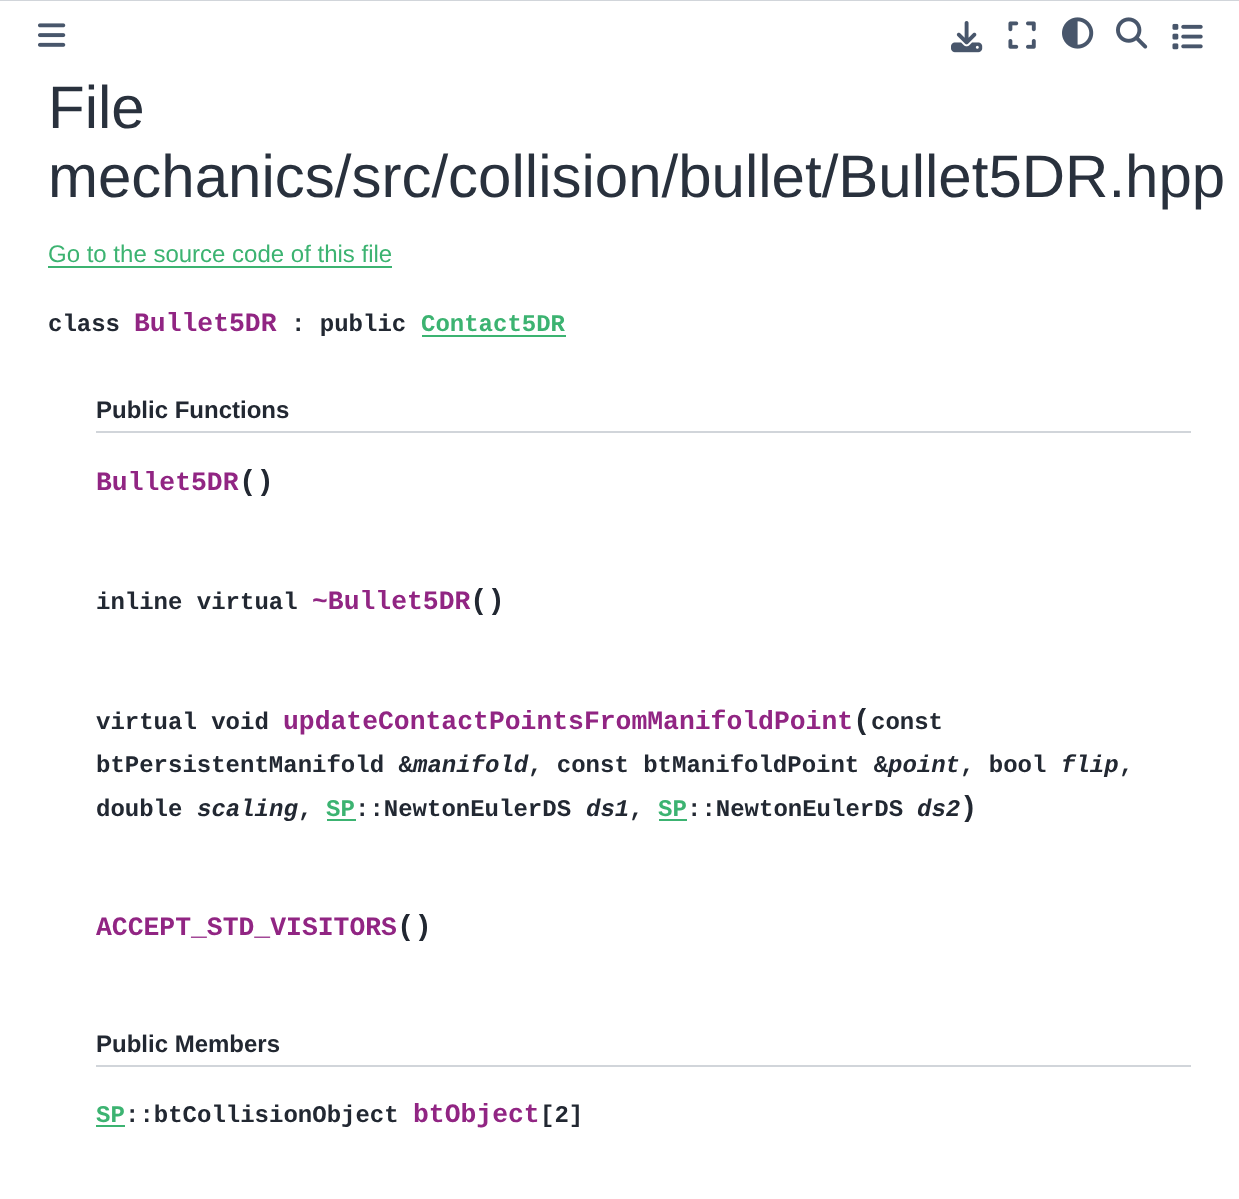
<!DOCTYPE html>
<meta charset="utf-8">
<style>body { margin: 0 } canvas { display: block }</style>
<canvas id="canvas" width="1239" height="1199"></canvas>
<script type="module">
  const canvas = document.getElementById("canvas");
  const g = canvas.getContext("2d");
  g.miterLimit = 4;
  g.fontKerning = "normal";
  function drawText(s, x, y, [font, color]) {
    g.font = font;
    g.fillStyle = color;
    g.fillText(s, x, y);
  }
  function fillBox(x, y, w, h, color) {
    g.fillStyle = color;
    g.fillRect(x, y, w, h);
  }
  async function drawPicture(src, x, y, w, h) {
    const img = new Image();
    img.src = src;
    await img.decode();
    g.drawImage(img, x, y, w, h);
  }

  const s1 = ["60px Liberation Sans", "#29313D"];
  const s2 = ["24px Liberation Sans", "#3CB371"];
  const s3 = ["bold 24px Liberation Mono", "#222832"];
  const s4 = ["bold 26.4px Liberation Mono", "#912583"];
  const s5 = ["bold 24px Liberation Mono", "#3CB371"];
  const s6 = ["bold 24px Liberation Sans", "#222832"];
  const s7 = ["bold 29px Liberation Mono", "#222832"];
  const s8 = ["italic bold 24px Liberation Mono", "#222832"];

  fillBox(0, 0, 1239, 1199, "#FFFFFF");
  fillBox(0, 0, 1239, 1, "#D1D5DA");
  await drawPicture("pic1.png", 38, 23, 28, 24);
  await drawPicture("pic2.png", 951, 21, 32, 32);
  await drawPicture("pic3.png", 1008, 21, 28, 28);
  await drawPicture("pic4.png", 1062, 17, 32, 32);
  await drawPicture("pic5.png", 1116, 17, 32, 32);
  await drawPicture("pic6.png", 1172, 23, 31, 27);
  drawText("File", 48, 128, s1);
  drawText("mechanics/src/collision/bullet/Bullet5DR.hpp", 48, 197, s1);
  drawText("Go to the source code of this file", 48, 262, s2);
  fillBox(48, 266, 344, 2, "#3CB371");
  drawText("class", 48, 331, s3);
  drawText("Bullet5DR", 134, 331, s4);
  drawText(": public", 291, 331, s3);
  drawText("Contact5DR", 421, 331, s5);
  fillBox(422, 335, 144, 2, "#3CB371");
  fillBox(96, 431, 1095, 2, "#D1D5DA");
  drawText("Public Functions", 96, 418, s6);
  drawText("Bullet5DR", 96, 490, s4);
  drawText("()", 239, 490, s7);
  drawText("inline virtual", 96, 609, s3);
  drawText("~Bullet5DR", 312, 609, s4);
  drawText("()", 470, 609, s7);
  drawText("virtual void", 96, 729, s3);
  drawText("updateContactPointsFromManifoldPoint", 283, 729, s4);
  drawText("(", 853, 729, s7);
  drawText("const", 871, 729, s3);
  drawText("btPersistentManifold &", 96, 772, s3);
  drawText("manifold", 413, 772, s8);
  drawText(", const btManifoldPoint &", 528, 772, s3);
  drawText("point", 888, 772, s8);
  drawText(", bool", 960, 772, s3);
  drawText("flip", 1061, 772, s8);
  drawText(",", 1119, 772, s3);
  drawText("double", 96, 816, s3);
  drawText("scaling", 197, 816, s8);
  drawText(",", 298, 816, s3);
  drawText("SP", 326, 816, s5);
  fillBox(327, 819, 29, 2, "#3CB371");
  drawText("::NewtonEulerDS", 355, 816, s3);
  drawText("ds1", 586, 816, s8);
  drawText(",", 629, 816, s3);
  drawText("SP", 658, 816, s5);
  fillBox(659, 819, 28, 2, "#3CB371");
  drawText("::NewtonEulerDS", 687, 816, s3);
  drawText("ds2", 917, 816, s8);
  drawText(")", 960, 816, s7);
  drawText("ACCEPT_STD_VISITORS", 96, 935, s4);
  drawText("()", 397, 935, s7);
  fillBox(96, 1065, 1095, 2, "#D1D5DA");
  drawText("Public Members", 96, 1052, s6);
  drawText("SP", 96, 1122, s5);
  fillBox(96, 1125, 29, 2, "#3CB371");
  drawText("::btCollisionObject", 125, 1122, s3);
  drawText("btObject", 413, 1122, s4);
  drawText("[2]", 540, 1122, s3);
</script>
